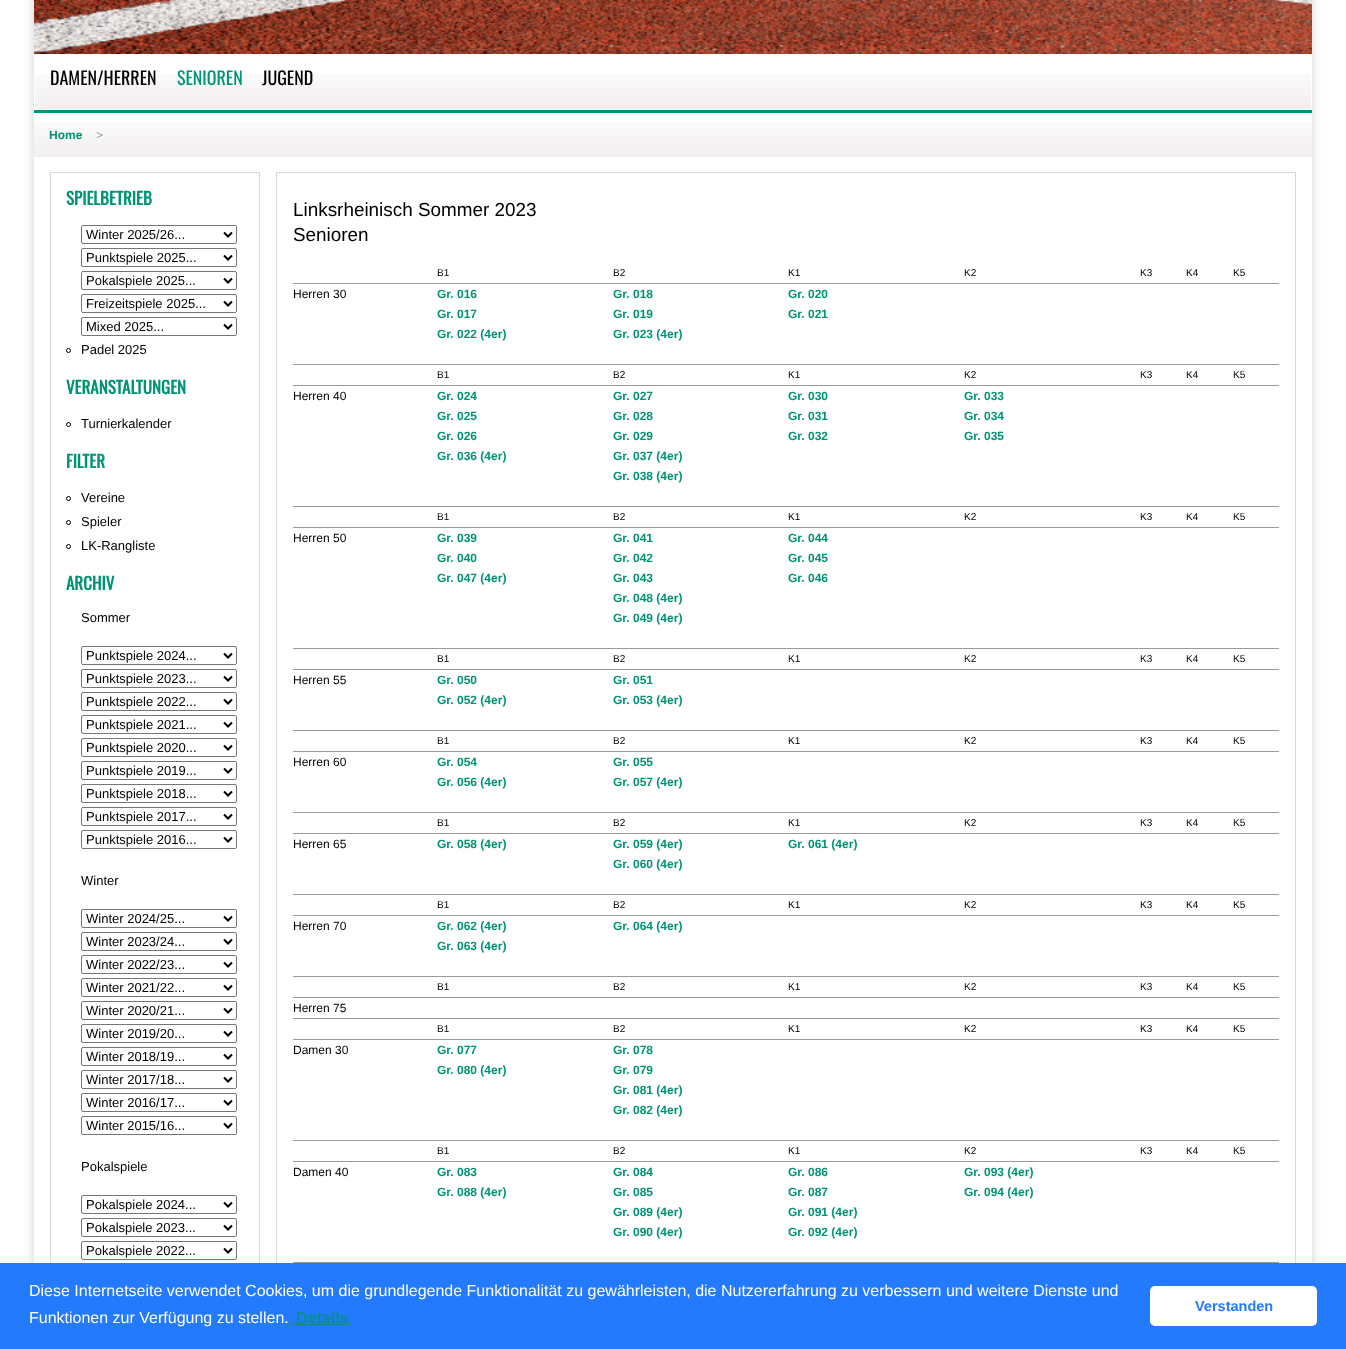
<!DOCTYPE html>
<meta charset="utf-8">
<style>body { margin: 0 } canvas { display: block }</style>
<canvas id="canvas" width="1346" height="1349"></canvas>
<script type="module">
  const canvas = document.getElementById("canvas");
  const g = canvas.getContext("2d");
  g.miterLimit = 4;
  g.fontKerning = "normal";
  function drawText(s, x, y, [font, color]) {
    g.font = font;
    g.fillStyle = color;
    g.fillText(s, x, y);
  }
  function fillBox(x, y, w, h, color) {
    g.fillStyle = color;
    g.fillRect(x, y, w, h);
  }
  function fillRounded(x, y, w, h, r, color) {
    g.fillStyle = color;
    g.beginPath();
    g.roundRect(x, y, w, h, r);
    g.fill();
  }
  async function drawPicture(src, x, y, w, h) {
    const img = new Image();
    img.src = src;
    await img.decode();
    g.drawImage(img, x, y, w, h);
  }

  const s1 = ["18px Oswald", "#000000"];
  const s2 = ["18px Oswald", "#009475"];
  const s3 = ["bold 12px Liberation Sans", "#009475"];
  const s4 = ["12px Liberation Sans", "#999999"];
  const s5 = ["bold 17px Oswald", "#009475"];
  const s6 = ["13px Liberation Sans", "#000000"];
  const s7 = ["18.9px Liberation Sans", "#000000"];
  const s8 = ["10px Liberation Sans", "#000000"];
  const s9 = ["12px Liberation Sans", "#000000"];
  const s10 = ["16px Liberation Sans", "#FFFFFF"];
  const s11 = ["bold 16px Liberation Sans", "#078F90"];
  const s12 = ["bold 14.5px Liberation Sans", "#237AFC"];

  fillBox(0, 0, 1346, 1349, "#FFFFFF");
  g.save();
  g.beginPath();
  g.moveTo(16, 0);
  g.lineTo(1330, 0);
  g.lineTo(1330, 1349);
  g.lineTo(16, 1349);
  g.closePath();
  g.moveTo(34, -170);
  g.lineTo(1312, -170);
  g.lineTo(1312, 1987);
  g.lineTo(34, 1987);
  g.closePath();
  g.clip("evenodd");
  g.fillStyle = "rgba(0, 0, 0, 0.18)";
  g.filter = "blur(5.5px)";
  g.beginPath();
  g.rect(34, -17, 1278, 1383);
  g.fill();
  g.filter = "none";
  g.restore();
  await drawPicture("pic1.png", 34, 0, 1278, 54);
  await drawPicture("pic2.png", 35, 74, 1276, 35);
  drawText("DAMEN/HERREN", 50, 85, s1);
  drawText("SENIOREN", 177, 85, s2);
  drawText("JUGEND", 262, 85, s1);
  await drawPicture("pic3.png", 34, 122, 1278, 35);
  fillBox(34, 110, 1278, 3, "#009475");
  drawText("Home", 49, 139, s3);
  drawText(">", 96, 139, s4);
  g.strokeStyle = "#D8D8D8";
  g.strokeRect(50.5, 172.5, 209, 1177);
  drawText("SPIELBETRIEB", 66, 205, s5);
  g.beginPath();
  g.roundRect(81.5, 225.5, 155, 18, 1.5);
  g.strokeStyle = "#767676";
  g.stroke();
  g.beginPath();
  g.moveTo(224, 232.5);
  g.lineTo(228, 236.5);
  g.lineTo(232, 232.5);
  g.strokeStyle = "#000000";
  g.lineWidth = 2;
  g.stroke();
  drawText("Winter 2025/26...", 86, 239, s6);
  g.beginPath();
  g.roundRect(81.5, 248.5, 155, 18, 1.5);
  g.strokeStyle = "#767676";
  g.lineWidth = 1;
  g.stroke();
  g.beginPath();
  g.moveTo(224, 255.5);
  g.lineTo(228, 259.5);
  g.lineTo(232, 255.5);
  g.strokeStyle = "#000000";
  g.lineWidth = 2;
  g.stroke();
  drawText("Punktspiele 2025...", 86, 262, s6);
  g.beginPath();
  g.roundRect(81.5, 271.5, 155, 18, 1.5);
  g.strokeStyle = "#767676";
  g.lineWidth = 1;
  g.stroke();
  g.beginPath();
  g.moveTo(224, 278.5);
  g.lineTo(228, 282.5);
  g.lineTo(232, 278.5);
  g.strokeStyle = "#000000";
  g.lineWidth = 2;
  g.stroke();
  drawText("Pokalspiele 2025...", 86, 285, s6);
  g.beginPath();
  g.roundRect(81.5, 294.5, 155, 18, 1.5);
  g.strokeStyle = "#767676";
  g.lineWidth = 1;
  g.stroke();
  g.beginPath();
  g.moveTo(224, 301.5);
  g.lineTo(228, 305.5);
  g.lineTo(232, 301.5);
  g.strokeStyle = "#000000";
  g.lineWidth = 2;
  g.stroke();
  drawText("Freizeitspiele 2025...", 86, 308, s6);
  g.beginPath();
  g.roundRect(81.5, 317.5, 155, 18, 1.5);
  g.strokeStyle = "#767676";
  g.lineWidth = 1;
  g.stroke();
  g.beginPath();
  g.moveTo(224, 324.5);
  g.lineTo(228, 328.5);
  g.lineTo(232, 324.5);
  g.strokeStyle = "#000000";
  g.lineWidth = 2;
  g.stroke();
  drawText("Mixed 2025...", 86, 331, s6);
  g.beginPath();
  g.arc(68.5, 350.5, 2, 0, Math.PI * 2);
  g.lineWidth = 1;
  g.stroke();
  drawText("Padel 2025", 81, 354, s6);
  drawText("VERANSTALTUNGEN", 66, 394, s5);
  g.beginPath();
  g.arc(68.5, 424.5, 2, 0, Math.PI * 2);
  g.stroke();
  drawText("Turnierkalender", 81, 428, s6);
  drawText("FILTER", 66, 468, s5);
  g.beginPath();
  g.arc(68.5, 498.5, 2, 0, Math.PI * 2);
  g.stroke();
  drawText("Vereine", 81, 502, s6);
  g.beginPath();
  g.arc(68.5, 522.5, 2, 0, Math.PI * 2);
  g.stroke();
  drawText("Spieler", 81, 526, s6);
  g.beginPath();
  g.arc(68.5, 546.5, 2, 0, Math.PI * 2);
  g.stroke();
  drawText("LK-Rangliste", 81, 550, s6);
  drawText("ARCHIV", 66, 590, s5);
  drawText("Sommer", 81, 622, s6);
  g.beginPath();
  g.roundRect(81.5, 646.5, 155, 18, 1.5);
  g.strokeStyle = "#767676";
  g.stroke();
  g.beginPath();
  g.moveTo(224, 653.5);
  g.lineTo(228, 657.5);
  g.lineTo(232, 653.5);
  g.strokeStyle = "#000000";
  g.lineWidth = 2;
  g.stroke();
  drawText("Punktspiele 2024...", 86, 660, s6);
  g.beginPath();
  g.roundRect(81.5, 669.5, 155, 18, 1.5);
  g.strokeStyle = "#767676";
  g.lineWidth = 1;
  g.stroke();
  g.beginPath();
  g.moveTo(224, 676.5);
  g.lineTo(228, 680.5);
  g.lineTo(232, 676.5);
  g.strokeStyle = "#000000";
  g.lineWidth = 2;
  g.stroke();
  drawText("Punktspiele 2023...", 86, 683, s6);
  g.beginPath();
  g.roundRect(81.5, 692.5, 155, 18, 1.5);
  g.strokeStyle = "#767676";
  g.lineWidth = 1;
  g.stroke();
  g.beginPath();
  g.moveTo(224, 699.5);
  g.lineTo(228, 703.5);
  g.lineTo(232, 699.5);
  g.strokeStyle = "#000000";
  g.lineWidth = 2;
  g.stroke();
  drawText("Punktspiele 2022...", 86, 706, s6);
  g.beginPath();
  g.roundRect(81.5, 715.5, 155, 18, 1.5);
  g.strokeStyle = "#767676";
  g.lineWidth = 1;
  g.stroke();
  g.beginPath();
  g.moveTo(224, 722.5);
  g.lineTo(228, 726.5);
  g.lineTo(232, 722.5);
  g.strokeStyle = "#000000";
  g.lineWidth = 2;
  g.stroke();
  drawText("Punktspiele 2021...", 86, 729, s6);
  g.beginPath();
  g.roundRect(81.5, 738.5, 155, 18, 1.5);
  g.strokeStyle = "#767676";
  g.lineWidth = 1;
  g.stroke();
  g.beginPath();
  g.moveTo(224, 745.5);
  g.lineTo(228, 749.5);
  g.lineTo(232, 745.5);
  g.strokeStyle = "#000000";
  g.lineWidth = 2;
  g.stroke();
  drawText("Punktspiele 2020...", 86, 752, s6);
  g.beginPath();
  g.roundRect(81.5, 761.5, 155, 18, 1.5);
  g.strokeStyle = "#767676";
  g.lineWidth = 1;
  g.stroke();
  g.beginPath();
  g.moveTo(224, 768.5);
  g.lineTo(228, 772.5);
  g.lineTo(232, 768.5);
  g.strokeStyle = "#000000";
  g.lineWidth = 2;
  g.stroke();
  drawText("Punktspiele 2019...", 86, 775, s6);
  g.beginPath();
  g.roundRect(81.5, 784.5, 155, 18, 1.5);
  g.strokeStyle = "#767676";
  g.lineWidth = 1;
  g.stroke();
  g.beginPath();
  g.moveTo(224, 791.5);
  g.lineTo(228, 795.5);
  g.lineTo(232, 791.5);
  g.strokeStyle = "#000000";
  g.lineWidth = 2;
  g.stroke();
  drawText("Punktspiele 2018...", 86, 798, s6);
  g.beginPath();
  g.roundRect(81.5, 807.5, 155, 18, 1.5);
  g.strokeStyle = "#767676";
  g.lineWidth = 1;
  g.stroke();
  g.beginPath();
  g.moveTo(224, 814.5);
  g.lineTo(228, 818.5);
  g.lineTo(232, 814.5);
  g.strokeStyle = "#000000";
  g.lineWidth = 2;
  g.stroke();
  drawText("Punktspiele 2017...", 86, 821, s6);
  g.beginPath();
  g.roundRect(81.5, 830.5, 155, 18, 1.5);
  g.strokeStyle = "#767676";
  g.lineWidth = 1;
  g.stroke();
  g.beginPath();
  g.moveTo(224, 837.5);
  g.lineTo(228, 841.5);
  g.lineTo(232, 837.5);
  g.strokeStyle = "#000000";
  g.lineWidth = 2;
  g.stroke();
  drawText("Punktspiele 2016...", 86, 844, s6);
  drawText("Winter", 81, 885, s6);
  g.beginPath();
  g.roundRect(81.5, 909.5, 155, 18, 1.5);
  g.strokeStyle = "#767676";
  g.lineWidth = 1;
  g.stroke();
  g.beginPath();
  g.moveTo(224, 916.5);
  g.lineTo(228, 920.5);
  g.lineTo(232, 916.5);
  g.strokeStyle = "#000000";
  g.lineWidth = 2;
  g.stroke();
  drawText("Winter 2024/25...", 86, 923, s6);
  g.beginPath();
  g.roundRect(81.5, 932.5, 155, 18, 1.5);
  g.strokeStyle = "#767676";
  g.lineWidth = 1;
  g.stroke();
  g.beginPath();
  g.moveTo(224, 939.5);
  g.lineTo(228, 943.5);
  g.lineTo(232, 939.5);
  g.strokeStyle = "#000000";
  g.lineWidth = 2;
  g.stroke();
  drawText("Winter 2023/24...", 86, 946, s6);
  g.beginPath();
  g.roundRect(81.5, 955.5, 155, 18, 1.5);
  g.strokeStyle = "#767676";
  g.lineWidth = 1;
  g.stroke();
  g.beginPath();
  g.moveTo(224, 962.5);
  g.lineTo(228, 966.5);
  g.lineTo(232, 962.5);
  g.strokeStyle = "#000000";
  g.lineWidth = 2;
  g.stroke();
  drawText("Winter 2022/23...", 86, 969, s6);
  g.beginPath();
  g.roundRect(81.5, 978.5, 155, 18, 1.5);
  g.strokeStyle = "#767676";
  g.lineWidth = 1;
  g.stroke();
  g.beginPath();
  g.moveTo(224, 985.5);
  g.lineTo(228, 989.5);
  g.lineTo(232, 985.5);
  g.strokeStyle = "#000000";
  g.lineWidth = 2;
  g.stroke();
  drawText("Winter 2021/22...", 86, 992, s6);
  g.beginPath();
  g.roundRect(81.5, 1001.5, 155, 18, 1.5);
  g.strokeStyle = "#767676";
  g.lineWidth = 1;
  g.stroke();
  g.beginPath();
  g.moveTo(224, 1008.5);
  g.lineTo(228, 1012.5);
  g.lineTo(232, 1008.5);
  g.strokeStyle = "#000000";
  g.lineWidth = 2;
  g.stroke();
  drawText("Winter 2020/21...", 86, 1015, s6);
  g.beginPath();
  g.roundRect(81.5, 1024.5, 155, 18, 1.5);
  g.strokeStyle = "#767676";
  g.lineWidth = 1;
  g.stroke();
  g.beginPath();
  g.moveTo(224, 1031.5);
  g.lineTo(228, 1035.5);
  g.lineTo(232, 1031.5);
  g.strokeStyle = "#000000";
  g.lineWidth = 2;
  g.stroke();
  drawText("Winter 2019/20...", 86, 1038, s6);
  g.beginPath();
  g.roundRect(81.5, 1047.5, 155, 18, 1.5);
  g.strokeStyle = "#767676";
  g.lineWidth = 1;
  g.stroke();
  g.beginPath();
  g.moveTo(224, 1054.5);
  g.lineTo(228, 1058.5);
  g.lineTo(232, 1054.5);
  g.strokeStyle = "#000000";
  g.lineWidth = 2;
  g.stroke();
  drawText("Winter 2018/19...", 86, 1061, s6);
  g.beginPath();
  g.roundRect(81.5, 1070.5, 155, 18, 1.5);
  g.strokeStyle = "#767676";
  g.lineWidth = 1;
  g.stroke();
  g.beginPath();
  g.moveTo(224, 1077.5);
  g.lineTo(228, 1081.5);
  g.lineTo(232, 1077.5);
  g.strokeStyle = "#000000";
  g.lineWidth = 2;
  g.stroke();
  drawText("Winter 2017/18...", 86, 1084, s6);
  g.beginPath();
  g.roundRect(81.5, 1093.5, 155, 18, 1.5);
  g.strokeStyle = "#767676";
  g.lineWidth = 1;
  g.stroke();
  g.beginPath();
  g.moveTo(224, 1100.5);
  g.lineTo(228, 1104.5);
  g.lineTo(232, 1100.5);
  g.strokeStyle = "#000000";
  g.lineWidth = 2;
  g.stroke();
  drawText("Winter 2016/17...", 86, 1107, s6);
  g.beginPath();
  g.roundRect(81.5, 1116.5, 155, 18, 1.5);
  g.strokeStyle = "#767676";
  g.lineWidth = 1;
  g.stroke();
  g.beginPath();
  g.moveTo(224, 1123.5);
  g.lineTo(228, 1127.5);
  g.lineTo(232, 1123.5);
  g.strokeStyle = "#000000";
  g.lineWidth = 2;
  g.stroke();
  drawText("Winter 2015/16...", 86, 1130, s6);
  drawText("Pokalspiele", 81, 1171, s6);
  g.beginPath();
  g.roundRect(81.5, 1195.5, 155, 18, 1.5);
  g.strokeStyle = "#767676";
  g.lineWidth = 1;
  g.stroke();
  g.beginPath();
  g.moveTo(224, 1202.5);
  g.lineTo(228, 1206.5);
  g.lineTo(232, 1202.5);
  g.strokeStyle = "#000000";
  g.lineWidth = 2;
  g.stroke();
  drawText("Pokalspiele 2024...", 86, 1209, s6);
  g.beginPath();
  g.roundRect(81.5, 1218.5, 155, 18, 1.5);
  g.strokeStyle = "#767676";
  g.lineWidth = 1;
  g.stroke();
  g.beginPath();
  g.moveTo(224, 1225.5);
  g.lineTo(228, 1229.5);
  g.lineTo(232, 1225.5);
  g.strokeStyle = "#000000";
  g.lineWidth = 2;
  g.stroke();
  drawText("Pokalspiele 2023...", 86, 1232, s6);
  g.beginPath();
  g.roundRect(81.5, 1241.5, 155, 18, 1.5);
  g.strokeStyle = "#767676";
  g.lineWidth = 1;
  g.stroke();
  g.beginPath();
  g.moveTo(224, 1248.5);
  g.lineTo(228, 1252.5);
  g.lineTo(232, 1248.5);
  g.strokeStyle = "#000000";
  g.lineWidth = 2;
  g.stroke();
  drawText("Pokalspiele 2022...", 86, 1255, s6);
  g.strokeStyle = "#D8D8D8";
  g.lineWidth = 1;
  g.strokeRect(276.5, 172.5, 1019, 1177);
  drawText("Linksrheinisch Sommer 2023", 293, 216, s7);
  drawText("Senioren", 293, 241, s7);
  drawText("B1", 437, 276, s8);
  drawText("B2", 613, 276, s8);
  drawText("K1", 788, 276, s8);
  drawText("K2", 964, 276, s8);
  drawText("K3", 1140, 276, s8);
  drawText("K4", 1186, 276, s8);
  drawText("K5", 1233, 276, s8);
  fillBox(293, 283, 986, 1, "#999999");
  fillBox(293, 364, 986, 1, "#999999");
  drawText("Herren 30", 293, 298, s9);
  drawText("Gr. 016", 437, 298, s3);
  drawText("Gr. 017", 437, 318, s3);
  drawText("Gr. 022 (4er)", 437, 338, s3);
  drawText("Gr. 018", 613, 298, s3);
  drawText("Gr. 019", 613, 318, s3);
  drawText("Gr. 023 (4er)", 613, 338, s3);
  drawText("Gr. 020", 788, 298, s3);
  drawText("Gr. 021", 788, 318, s3);
  drawText("B1", 437, 378, s8);
  drawText("B2", 613, 378, s8);
  drawText("K1", 788, 378, s8);
  drawText("K2", 964, 378, s8);
  drawText("K3", 1140, 378, s8);
  drawText("K4", 1186, 378, s8);
  drawText("K5", 1233, 378, s8);
  fillBox(293, 385, 986, 1, "#999999");
  fillBox(293, 506, 986, 1, "#999999");
  drawText("Herren 40", 293, 400, s9);
  drawText("Gr. 024", 437, 400, s3);
  drawText("Gr. 025", 437, 420, s3);
  drawText("Gr. 026", 437, 440, s3);
  drawText("Gr. 036 (4er)", 437, 460, s3);
  drawText("Gr. 027", 613, 400, s3);
  drawText("Gr. 028", 613, 420, s3);
  drawText("Gr. 029", 613, 440, s3);
  drawText("Gr. 037 (4er)", 613, 460, s3);
  drawText("Gr. 038 (4er)", 613, 480, s3);
  drawText("Gr. 030", 788, 400, s3);
  drawText("Gr. 031", 788, 420, s3);
  drawText("Gr. 032", 788, 440, s3);
  drawText("Gr. 033", 964, 400, s3);
  drawText("Gr. 034", 964, 420, s3);
  drawText("Gr. 035", 964, 440, s3);
  drawText("B1", 437, 520, s8);
  drawText("B2", 613, 520, s8);
  drawText("K1", 788, 520, s8);
  drawText("K2", 964, 520, s8);
  drawText("K3", 1140, 520, s8);
  drawText("K4", 1186, 520, s8);
  drawText("K5", 1233, 520, s8);
  fillBox(293, 527, 986, 1, "#999999");
  fillBox(293, 648, 986, 1, "#999999");
  drawText("Herren 50", 293, 542, s9);
  drawText("Gr. 039", 437, 542, s3);
  drawText("Gr. 040", 437, 562, s3);
  drawText("Gr. 047 (4er)", 437, 582, s3);
  drawText("Gr. 041", 613, 542, s3);
  drawText("Gr. 042", 613, 562, s3);
  drawText("Gr. 043", 613, 582, s3);
  drawText("Gr. 048 (4er)", 613, 602, s3);
  drawText("Gr. 049 (4er)", 613, 622, s3);
  drawText("Gr. 044", 788, 542, s3);
  drawText("Gr. 045", 788, 562, s3);
  drawText("Gr. 046", 788, 582, s3);
  drawText("B1", 437, 662, s8);
  drawText("B2", 613, 662, s8);
  drawText("K1", 788, 662, s8);
  drawText("K2", 964, 662, s8);
  drawText("K3", 1140, 662, s8);
  drawText("K4", 1186, 662, s8);
  drawText("K5", 1233, 662, s8);
  fillBox(293, 669, 986, 1, "#999999");
  fillBox(293, 730, 986, 1, "#999999");
  drawText("Herren 55", 293, 684, s9);
  drawText("Gr. 050", 437, 684, s3);
  drawText("Gr. 052 (4er)", 437, 704, s3);
  drawText("Gr. 051", 613, 684, s3);
  drawText("Gr. 053 (4er)", 613, 704, s3);
  drawText("B1", 437, 744, s8);
  drawText("B2", 613, 744, s8);
  drawText("K1", 788, 744, s8);
  drawText("K2", 964, 744, s8);
  drawText("K3", 1140, 744, s8);
  drawText("K4", 1186, 744, s8);
  drawText("K5", 1233, 744, s8);
  fillBox(293, 751, 986, 1, "#999999");
  fillBox(293, 812, 986, 1, "#999999");
  drawText("Herren 60", 293, 766, s9);
  drawText("Gr. 054", 437, 766, s3);
  drawText("Gr. 056 (4er)", 437, 786, s3);
  drawText("Gr. 055", 613, 766, s3);
  drawText("Gr. 057 (4er)", 613, 786, s3);
  drawText("B1", 437, 826, s8);
  drawText("B2", 613, 826, s8);
  drawText("K1", 788, 826, s8);
  drawText("K2", 964, 826, s8);
  drawText("K3", 1140, 826, s8);
  drawText("K4", 1186, 826, s8);
  drawText("K5", 1233, 826, s8);
  fillBox(293, 833, 986, 1, "#999999");
  fillBox(293, 894, 986, 1, "#999999");
  drawText("Herren 65", 293, 848, s9);
  drawText("Gr. 058 (4er)", 437, 848, s3);
  drawText("Gr. 059 (4er)", 613, 848, s3);
  drawText("Gr. 060 (4er)", 613, 868, s3);
  drawText("Gr. 061 (4er)", 788, 848, s3);
  drawText("B1", 437, 908, s8);
  drawText("B2", 613, 908, s8);
  drawText("K1", 788, 908, s8);
  drawText("K2", 964, 908, s8);
  drawText("K3", 1140, 908, s8);
  drawText("K4", 1186, 908, s8);
  drawText("K5", 1233, 908, s8);
  fillBox(293, 915, 986, 1, "#999999");
  fillBox(293, 976, 986, 1, "#999999");
  drawText("Herren 70", 293, 930, s9);
  drawText("Gr. 062 (4er)", 437, 930, s3);
  drawText("Gr. 063 (4er)", 437, 950, s3);
  drawText("Gr. 064 (4er)", 613, 930, s3);
  drawText("B1", 437, 990, s8);
  drawText("B2", 613, 990, s8);
  drawText("K1", 788, 990, s8);
  drawText("K2", 964, 990, s8);
  drawText("K3", 1140, 990, s8);
  drawText("K4", 1186, 990, s8);
  drawText("K5", 1233, 990, s8);
  fillBox(293, 997, 986, 1, "#999999");
  fillBox(293, 1018, 986, 1, "#999999");
  drawText("Herren 75", 293, 1012, s9);
  drawText("B1", 437, 1032, s8);
  drawText("B2", 613, 1032, s8);
  drawText("K1", 788, 1032, s8);
  drawText("K2", 964, 1032, s8);
  drawText("K3", 1140, 1032, s8);
  drawText("K4", 1186, 1032, s8);
  drawText("K5", 1233, 1032, s8);
  fillBox(293, 1039, 986, 1, "#999999");
  fillBox(293, 1140, 986, 1, "#999999");
  drawText("Damen 30", 293, 1054, s9);
  drawText("Gr. 077", 437, 1054, s3);
  drawText("Gr. 080 (4er)", 437, 1074, s3);
  drawText("Gr. 078", 613, 1054, s3);
  drawText("Gr. 079", 613, 1074, s3);
  drawText("Gr. 081 (4er)", 613, 1094, s3);
  drawText("Gr. 082 (4er)", 613, 1114, s3);
  drawText("B1", 437, 1154, s8);
  drawText("B2", 613, 1154, s8);
  drawText("K1", 788, 1154, s8);
  drawText("K2", 964, 1154, s8);
  drawText("K3", 1140, 1154, s8);
  drawText("K4", 1186, 1154, s8);
  drawText("K5", 1233, 1154, s8);
  fillBox(293, 1161, 986, 1, "#999999");
  fillBox(293, 1262, 986, 1, "#999999");
  drawText("Damen 40", 293, 1176, s9);
  drawText("Gr. 083", 437, 1176, s3);
  drawText("Gr. 088 (4er)", 437, 1196, s3);
  drawText("Gr. 084", 613, 1176, s3);
  drawText("Gr. 085", 613, 1196, s3);
  drawText("Gr. 089 (4er)", 613, 1216, s3);
  drawText("Gr. 090 (4er)", 613, 1236, s3);
  drawText("Gr. 086", 788, 1176, s3);
  drawText("Gr. 087", 788, 1196, s3);
  drawText("Gr. 091 (4er)", 788, 1216, s3);
  drawText("Gr. 092 (4er)", 788, 1236, s3);
  drawText("Gr. 093 (4er)", 964, 1176, s3);
  drawText("Gr. 094 (4er)", 964, 1196, s3);
  fillBox(0, 1263, 1346, 86, "#237AFC");
  drawText("Diese Internetseite verwendet Cookies, um die grundlegende Funktionalität zu gewährleisten, die Nutzererfahrung zu verbessern und weitere Dienste und", 29, 1296, s10);
  drawText("Funktionen zur Verfügung zu stellen.", 29, 1323, s10);
  drawText("Details", 296, 1323, s11);
  fillBox(296, 1324, 53, 1, "#078F90");
  fillRounded(1150, 1286, 167, 40, 5, "#FFFFFF");
  drawText("Verstanden", 1195, 1311, s12);
</script>
